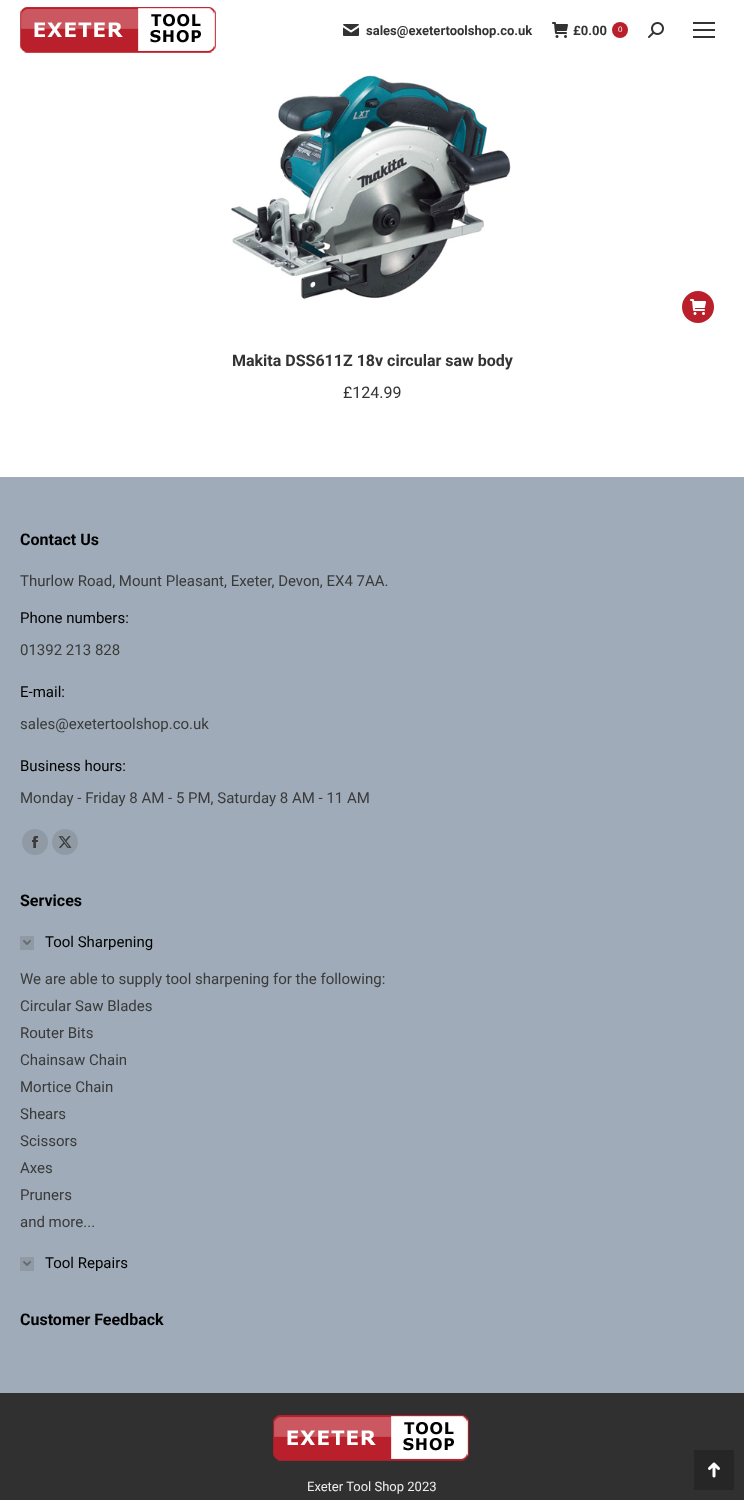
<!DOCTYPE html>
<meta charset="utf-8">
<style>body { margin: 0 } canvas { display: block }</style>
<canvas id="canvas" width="744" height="1500"></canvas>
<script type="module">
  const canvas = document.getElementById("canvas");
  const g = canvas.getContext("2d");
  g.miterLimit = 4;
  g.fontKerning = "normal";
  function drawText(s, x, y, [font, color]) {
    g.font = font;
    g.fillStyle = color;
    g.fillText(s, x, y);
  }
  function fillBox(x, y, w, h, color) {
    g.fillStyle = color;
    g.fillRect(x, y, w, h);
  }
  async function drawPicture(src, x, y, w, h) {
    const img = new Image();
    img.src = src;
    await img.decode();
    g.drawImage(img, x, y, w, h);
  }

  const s1 = ["bold 13px Roboto", "#333333"];
  const s2 = ["8px Liberation Sans", "#FFFFFF"];
  const s3 = ["bold 16px Roboto", "#333333"];
  const s4 = ["16px Roboto", "#333333"];
  const s5 = ["bold 16px Roboto", "#000000"];
  const s6 = ["15px Roboto", "#3A3A3A"];
  const s7 = ["15px Roboto", "#000000"];
  const s8 = ["13px Roboto", "#EEEEEE"];

  fillBox(0, 0, 744, 1500, "#FFFFFF");
  await drawPicture("pic1.png", 20, 7, 196, 46);
  await drawPicture("pic2.png", 343, 24, 16, 12);
  drawText("sales@exetertoolshop.co.uk", 366, 35, s1);
  await drawPicture("pic3.png", 552, 22, 16, 16);
  drawText("£0.00", 573, 35, s1);
  g.fillStyle = "#BA202B";
  g.beginPath();
  g.arc(620, 30, 8, 0, Math.PI * 2);
  g.fill();
  drawText("0", 618, 32, s2);
  await drawPicture("pic4.png", 648, 22, 16, 16);
  fillBox(693, 22, 22, 2, "#333333");
  fillBox(693, 29, 22, 2, "#333333");
  fillBox(693, 36, 22, 2, "#333333");
  await drawPicture("pic5.png", 231, 75, 280, 225);
  g.fillStyle = "#BA202B";
  g.beginPath();
  g.arc(698, 307, 16, 0, Math.PI * 2);
  g.fill();
  await drawPicture("pic6.png", 690, 299, 16, 16);
  drawText("Makita DSS611Z 18v circular saw body", 232, 366, s3);
  drawText("£124.99", 343, 398, s4);
  fillBox(0, 477, 744, 916, "#9FABB8");
  drawText("Contact Us", 20, 545, s5);
  drawText("Thurlow Road, Mount Pleasant, Exeter, Devon, EX4 7AA.", 20, 586, s6);
  drawText("Phone numbers:", 20, 623, s7);
  drawText("01392 213 828", 20, 655, s6);
  drawText("E-mail:", 20, 697, s7);
  drawText("sales@exetertoolshop.co.uk", 20, 729, s6);
  drawText("Business hours:", 20, 771, s7);
  drawText("Monday - Friday 8 AM - 5 PM, Saturday 8 AM - 11 AM", 20, 803, s6);
  g.fillStyle = "#909AA5";
  g.beginPath();
  g.arc(35, 842, 13, 0, Math.PI * 2);
  g.fill();
  await drawPicture("pic7.png", 32, 836, 6, 12);
  g.beginPath();
  g.arc(65, 842, 13, 0, Math.PI * 2);
  g.fill();
  await drawPicture("pic8.png", 58, 836, 14, 12);
  drawText("Services", 20, 906, s5);
  fillBox(20, 936, 14, 14, "#909AA5");
  drawText("Tool Sharpening", 45, 947, s7);
  await drawPicture("pic9.png", 23, 940, 8, 5);
  drawText("We are able to supply tool sharpening for the following:", 20, 984, s6);
  drawText("Circular Saw Blades", 20, 1011, s6);
  drawText("Router Bits", 20, 1038, s6);
  drawText("Chainsaw Chain", 20, 1065, s6);
  drawText("Mortice Chain", 20, 1092, s6);
  drawText("Shears", 20, 1119, s6);
  drawText("Scissors", 20, 1146, s6);
  drawText("Axes", 20, 1173, s6);
  drawText("Pruners", 20, 1200, s6);
  drawText("and more...", 20, 1227, s6);
  fillBox(20, 1257, 14, 14, "#909AA5");
  drawText("Tool Repairs", 45, 1268, s7);
  await drawPicture("pic9.png", 23, 1261, 8, 5);
  drawText("Customer Feedback", 20, 1325, s5);
  fillBox(0, 1393, 744, 107, "#303030");
  await drawPicture("pic10.png", 273, 1415, 196, 46);
  drawText("Exeter Tool Shop 2023", 307, 1491, s8);
  fillBox(694, 1450, 40, 40, "#262626");
  await drawPicture("pic11.png", 708, 1462, 12, 16);
</script>
